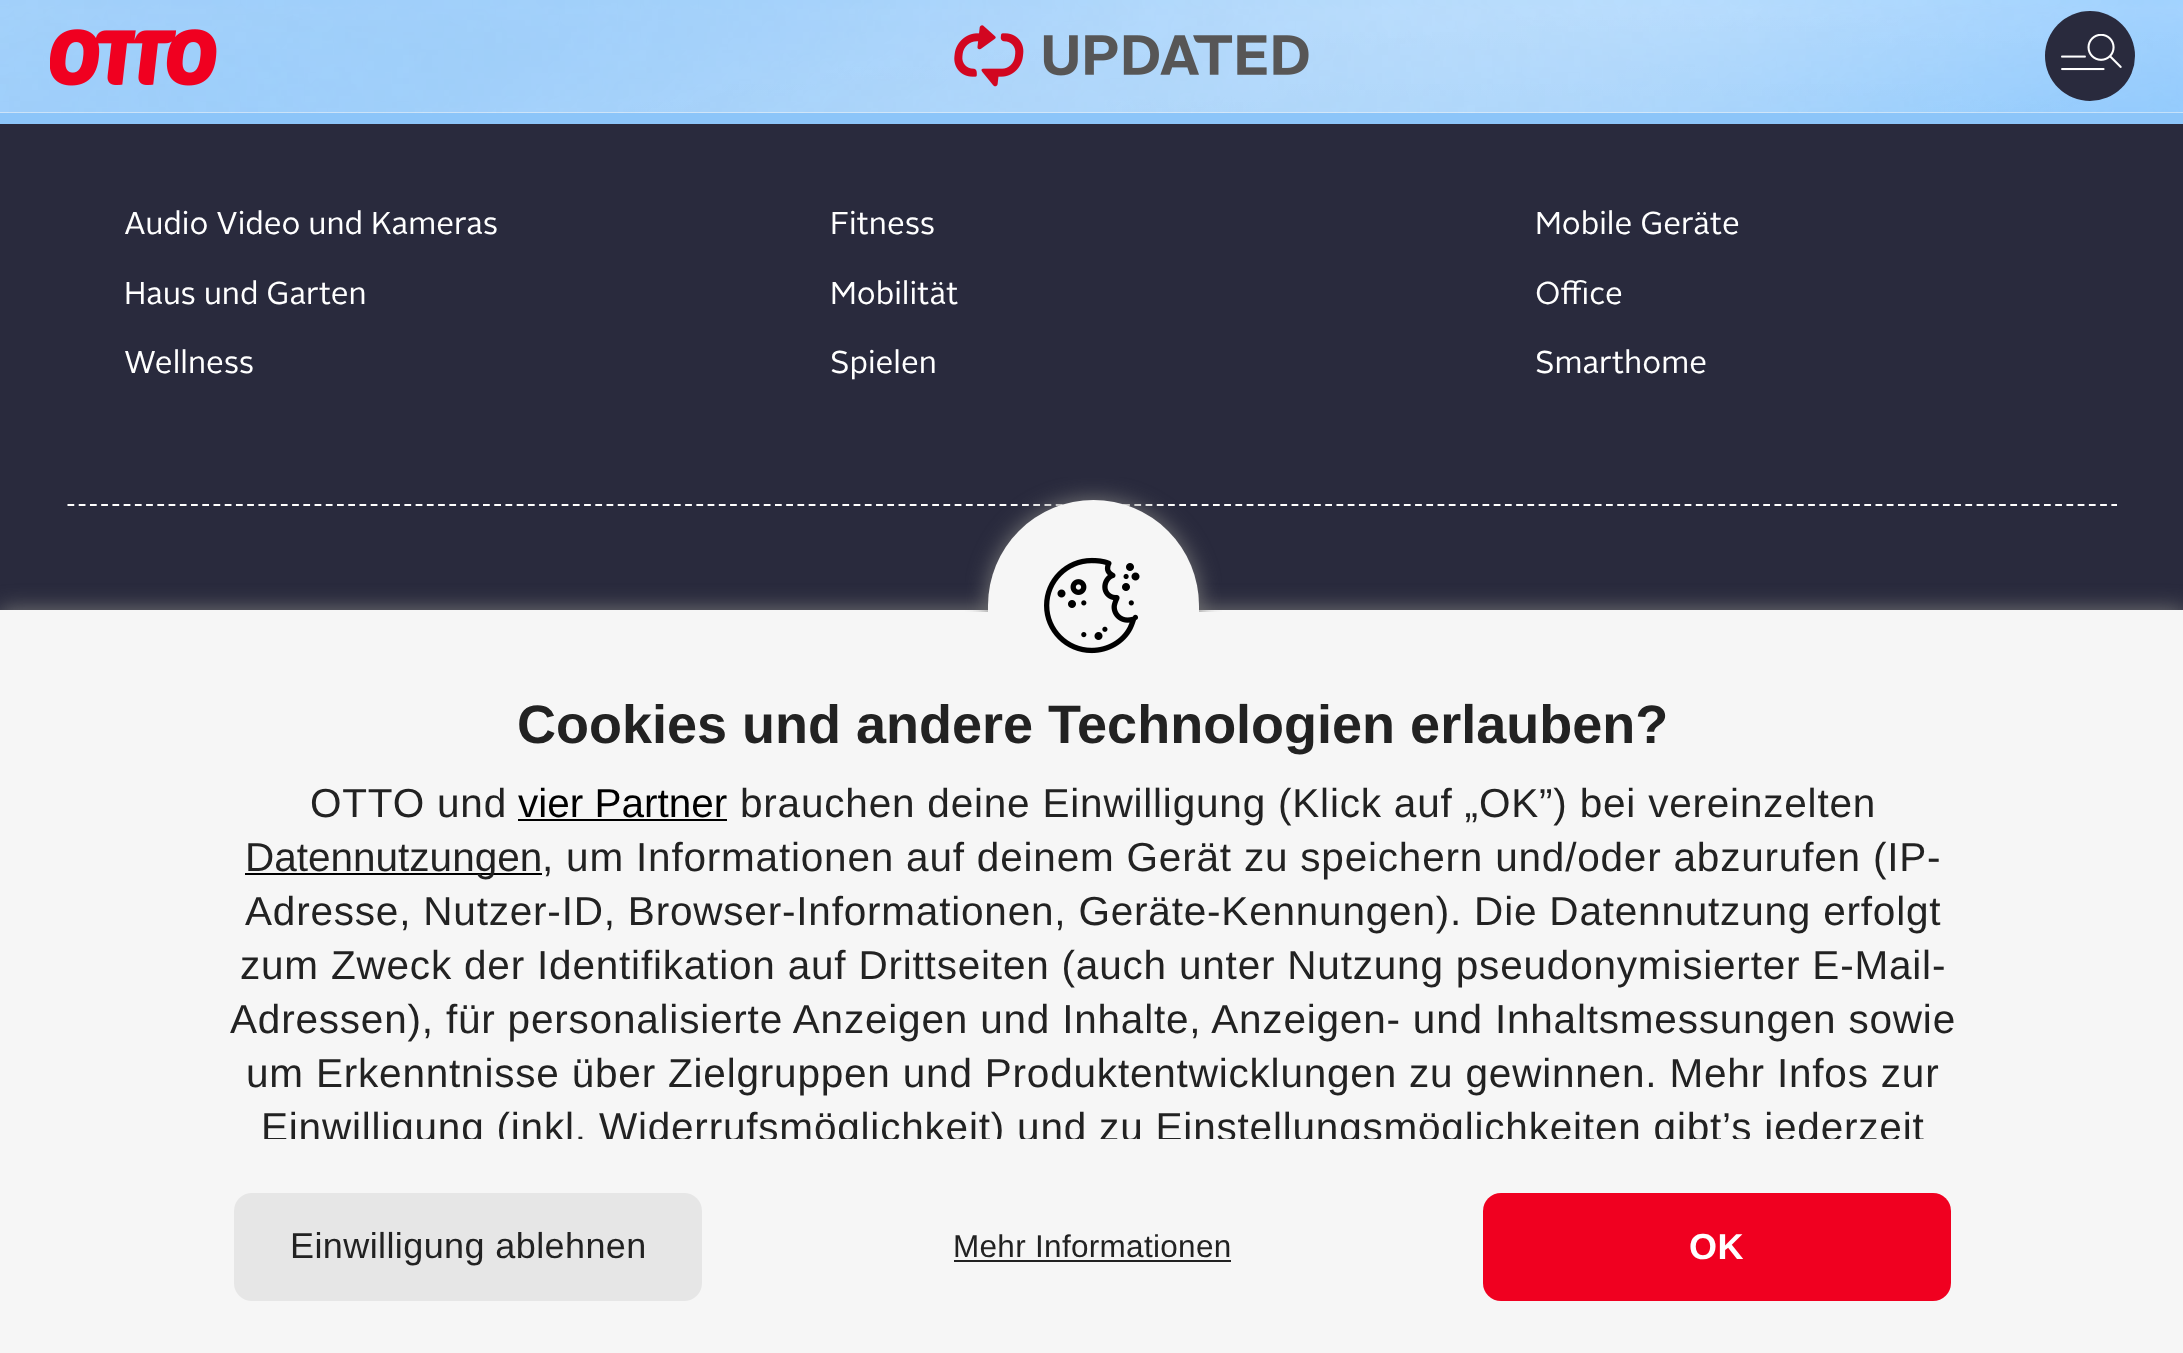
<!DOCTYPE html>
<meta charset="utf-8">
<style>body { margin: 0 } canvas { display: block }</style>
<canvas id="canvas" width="2183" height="1353"></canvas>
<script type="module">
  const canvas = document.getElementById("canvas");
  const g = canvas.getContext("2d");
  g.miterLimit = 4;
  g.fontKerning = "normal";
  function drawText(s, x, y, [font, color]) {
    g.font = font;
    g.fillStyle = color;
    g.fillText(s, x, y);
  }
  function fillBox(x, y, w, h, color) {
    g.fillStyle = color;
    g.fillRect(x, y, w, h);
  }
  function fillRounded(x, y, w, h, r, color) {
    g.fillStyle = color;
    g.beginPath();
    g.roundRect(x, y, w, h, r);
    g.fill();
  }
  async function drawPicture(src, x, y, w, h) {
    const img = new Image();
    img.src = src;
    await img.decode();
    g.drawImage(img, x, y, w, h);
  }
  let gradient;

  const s1 = ["31.5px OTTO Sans", "#FFFFFF"];
  const s2 = ["bold 54px Liberation Sans", "#222222"];
  const s3 = ["40.5px Liberation Sans", "#222222"];
  const s4 = ["40.5px Liberation Sans", "#000000"];
  const s5 = ["36px Liberation Sans", "#222222"];
  const s6 = ["31.5px Liberation Sans", "#222222"];
  const s7 = ["bold 36px Liberation Sans", "#FFFFFF"];

  fillBox(0, 0, 2183, 1353, "#292A3D");
  gradient = g.createLinearGradient(1092, 0, 1092, 113);
  gradient.addColorStop(0, "#FFFFFF");
  gradient.addColorStop(1, "#F8F8F8");
  g.fillStyle = gradient;
  g.fillRect(0, 0, 2183, 113);
  await drawPicture("pic1.png", 0, 0, 2183, 113);
  await drawPicture("pic2.png", 50, 29, 167, 57);
  await drawPicture("pic3.png", 954, 25, 355, 62);
  g.fillStyle = "#292A3D";
  g.beginPath();
  g.arc(2090, 56, 45, 0, Math.PI * 2);
  g.fill();
  await drawPicture("pic4.png", 2061, 34, 61, 37);
  fillBox(0, 113, 2183, 11, "#8CC5F9");
  drawText("Audio Video und Kameras", 124, 234, s1);
  drawText("Haus und Garten", 124, 304, s1);
  drawText("Wellness", 124, 373, s1);
  drawText("Fitness", 830, 234, s1);
  drawText("Mobilität", 830, 304, s1);
  drawText("Spielen", 830, 373, s1);
  drawText("Mobile Geräte", 1535, 234, s1);
  drawText("Office", 1535, 304, s1);
  drawText("Smarthome", 1535, 373, s1);
  g.beginPath();
  g.moveTo(67.5, 505);
  g.lineTo(2117, 505);
  g.strokeStyle = "#FFFFFF";
  g.lineWidth = 2.2;
  g.setLineDash([6.75, 4.48]);
  g.stroke();
  g.fillStyle = "#777777";
  g.filter = "blur(11px)";
  g.beginPath();
  g.rect(0, 610, 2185, 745);
  g.fill();
  g.filter = "none";
  fillBox(0, 610, 2183, 743, "#F6F6F6");
  g.save();
  g.beginPath();
  g.rect(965, 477, 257, 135);
  g.clip();
  g.fillStyle = "#777777";
  g.filter = "blur(11px)";
  g.beginPath();
  g.roundRect(988, 500, 211, 211, 105.5);
  g.fill();
  g.filter = "none";
  g.restore();
  g.beginPath();
  g.roundRect(988, 500, 211, 112, [105.5, 105.5, 0, 0]);
  g.fill();
  await drawPicture("pic5.png", 1044, 557, 96, 97);
  drawText("Cookies und andere Technologien erlauben?", 517, 743, s2);
  g.letterSpacing = "0.8px";
  drawText("OTTO und", 310, 817, s3);
  g.letterSpacing = "0px";
  drawText("vier Partner", 518, 817, s4);
  fillBox(518, 819, 209, 2, "#000000");
  g.letterSpacing = "0.8px";
  drawText("brauchen deine Einwilligung (Klick auf „OK”) bei vereinzelten", 740, 817, s3);
  fillBox(245, 873, 297, 2, "#000000");
  g.letterSpacing = "0px";
  drawText("Datennutzungen", 245, 871, s3);
  g.letterSpacing = "0.8px";
  drawText(", um Informationen auf deinem Gerät zu speichern und/oder abzurufen (IP-", 542, 871, s3);
  drawText("Adresse, Nutzer-ID, Browser-Informationen, Geräte-Kennungen). Die Datennutzung erfolgt", 245, 925, s3);
  drawText("zum Zweck der Identifikation auf Drittseiten (auch unter Nutzung pseudonymisierter E-Mail-", 240, 979, s3);
  drawText("Adressen), für personalisierte Anzeigen und Inhalte, Anzeigen- und Inhaltsmessungen sowie", 230, 1033, s3);
  drawText("um Erkenntnisse über Zielgruppen und Produktentwicklungen zu gewinnen. Mehr Infos zur", 246, 1087, s3);
  g.save();
  g.beginPath();
  g.rect(54, 655, 2077, 484);
  g.clip();
  drawText("Einwilligung (inkl. Widerrufsmöglichkeit) und zu Einstellungsmöglichkeiten gibt’s jederzeit", 261, 1141, s3);
  g.restore();
  fillRounded(234, 1193, 468, 108, 18, "#E6E6E6");
  g.letterSpacing = "0.4px";
  drawText("Einwilligung ablehnen", 290, 1258, s5);
  g.letterSpacing = "0.3px";
  drawText("Mehr Informationen", 953, 1257, s6);
  fillBox(954, 1260, 277, 2, "#222222");
  fillRounded(1483, 1193, 468, 108, 18, "#F00020");
  g.letterSpacing = "0.4px";
  drawText("OK", 1689, 1259, s7);
</script>
